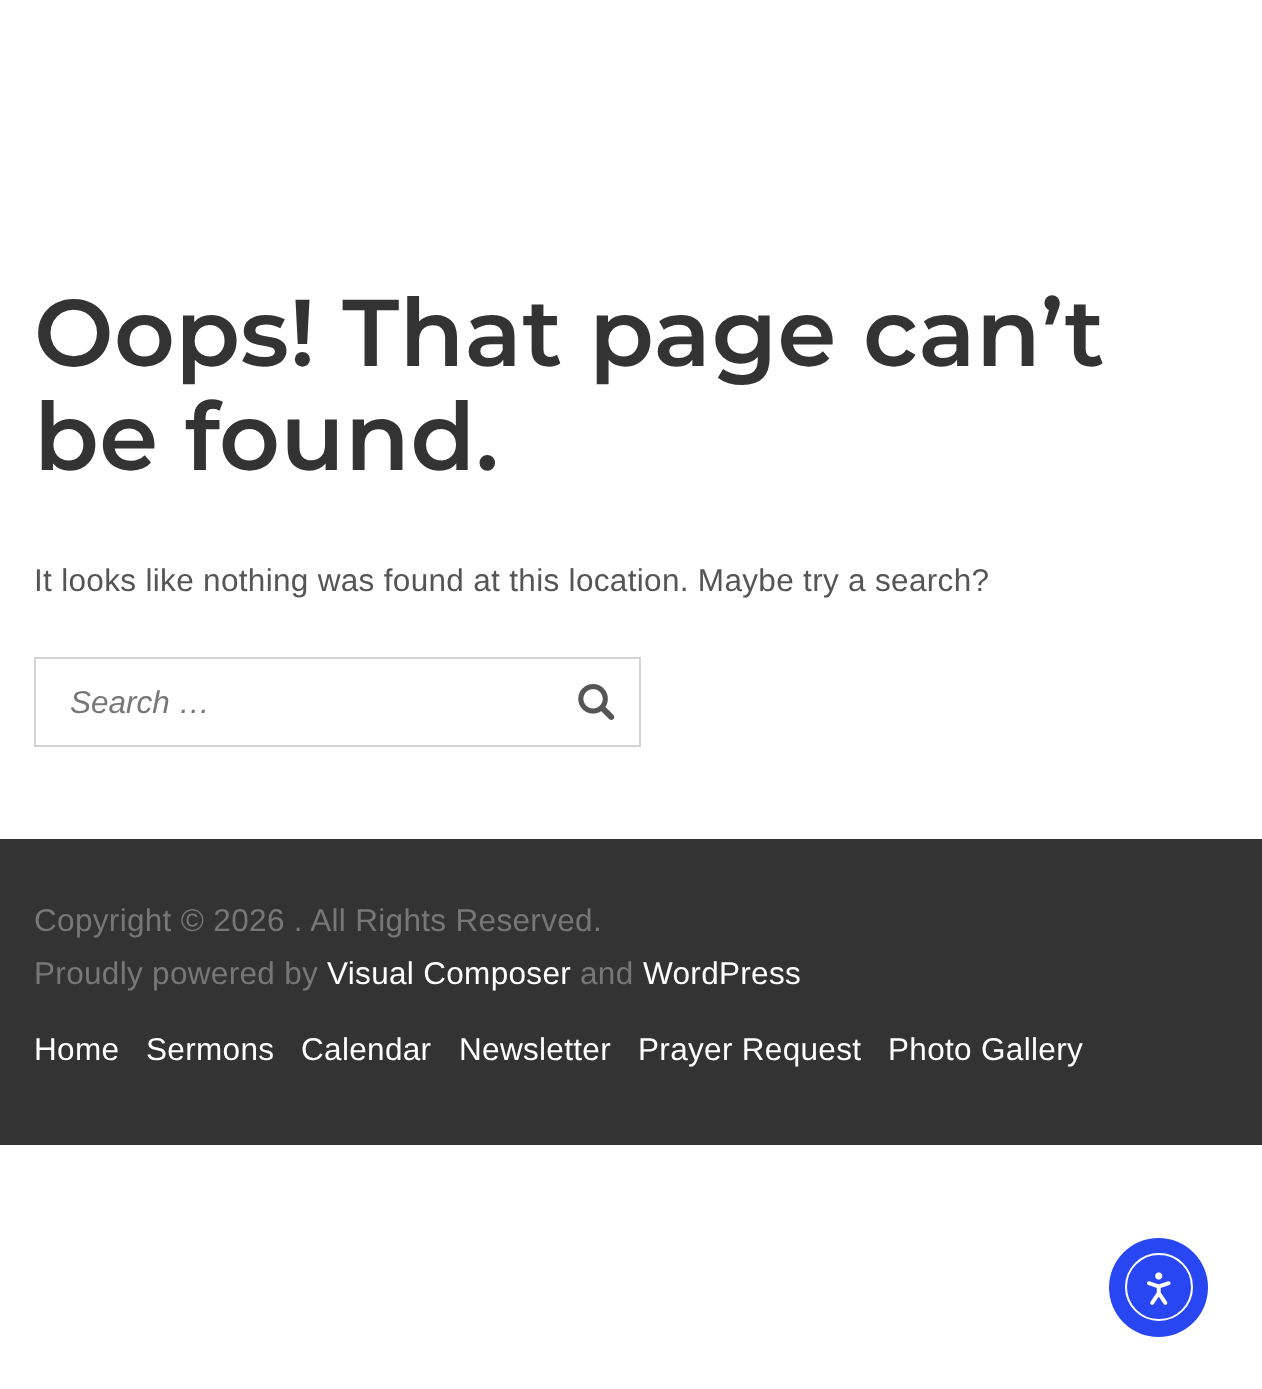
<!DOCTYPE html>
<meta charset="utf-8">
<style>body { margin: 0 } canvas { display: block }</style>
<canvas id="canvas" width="1262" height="1389"></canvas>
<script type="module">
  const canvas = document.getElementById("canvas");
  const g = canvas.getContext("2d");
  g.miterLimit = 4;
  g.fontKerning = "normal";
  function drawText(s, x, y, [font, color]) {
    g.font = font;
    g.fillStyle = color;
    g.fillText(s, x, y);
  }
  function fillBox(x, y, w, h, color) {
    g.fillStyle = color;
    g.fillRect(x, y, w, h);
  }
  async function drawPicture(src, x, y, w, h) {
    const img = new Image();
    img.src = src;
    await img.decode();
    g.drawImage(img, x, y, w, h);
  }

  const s1 = ["600 94.5px Montserrat", "#333333"];
  const s2 = ["31.5px Liberation Sans", "#555555"];
  const s3 = ["italic 31.5px Liberation Sans", "#777777"];
  const s4 = ["31.5px Liberation Sans", "#777777"];
  const s5 = ["31.5px Liberation Sans", "#FFFFFF"];

  fillBox(0, 0, 1262, 1389, "#FFFFFF");
  g.letterSpacing = "0.32px";
  drawText("Oops! That page can’t", 34, 366, s1);
  drawText("be found.", 34, 470, s1);
  drawText("It looks like nothing was found at this location. Maybe try a search?", 34, 591, s2);
  g.strokeStyle = "#D4D4D4";
  g.lineWidth = 2;
  g.strokeRect(35, 658, 605, 88);
  g.letterSpacing = "0px";
  drawText("Search …", 70, 713, s3);
  await drawPicture("pic1.png", 578, 684, 37, 36);
  fillBox(0, 839, 1262, 306, "#333333");
  g.letterSpacing = "0.32px";
  drawText("Copyright © 2026 . All Rights Reserved.", 34, 931, s4);
  drawText("Proudly powered by", 34, 984, s4);
  drawText("Visual Composer", 327, 984, s5);
  drawText("and", 580, 984, s4);
  drawText("WordPress", 643, 984, s5);
  drawText("Home", 34, 1060, s5);
  drawText("Sermons", 146, 1060, s5);
  drawText("Calendar", 301, 1060, s5);
  drawText("Newsletter", 459, 1060, s5);
  drawText("Prayer Request", 638, 1060, s5);
  drawText("Photo Gallery", 888, 1060, s5);
  g.fillStyle = "#2847F3";
  g.beginPath();
  g.arc(1158.5, 1287.5, 49.5, 0, Math.PI * 2);
  g.fill();
  g.beginPath();
  g.arc(1159, 1287, 33, 0, Math.PI * 2);
  g.strokeStyle = "#FFFFFF";
  g.stroke();
  await drawPicture("pic2.png", 1147, 1272, 24, 33);
</script>
